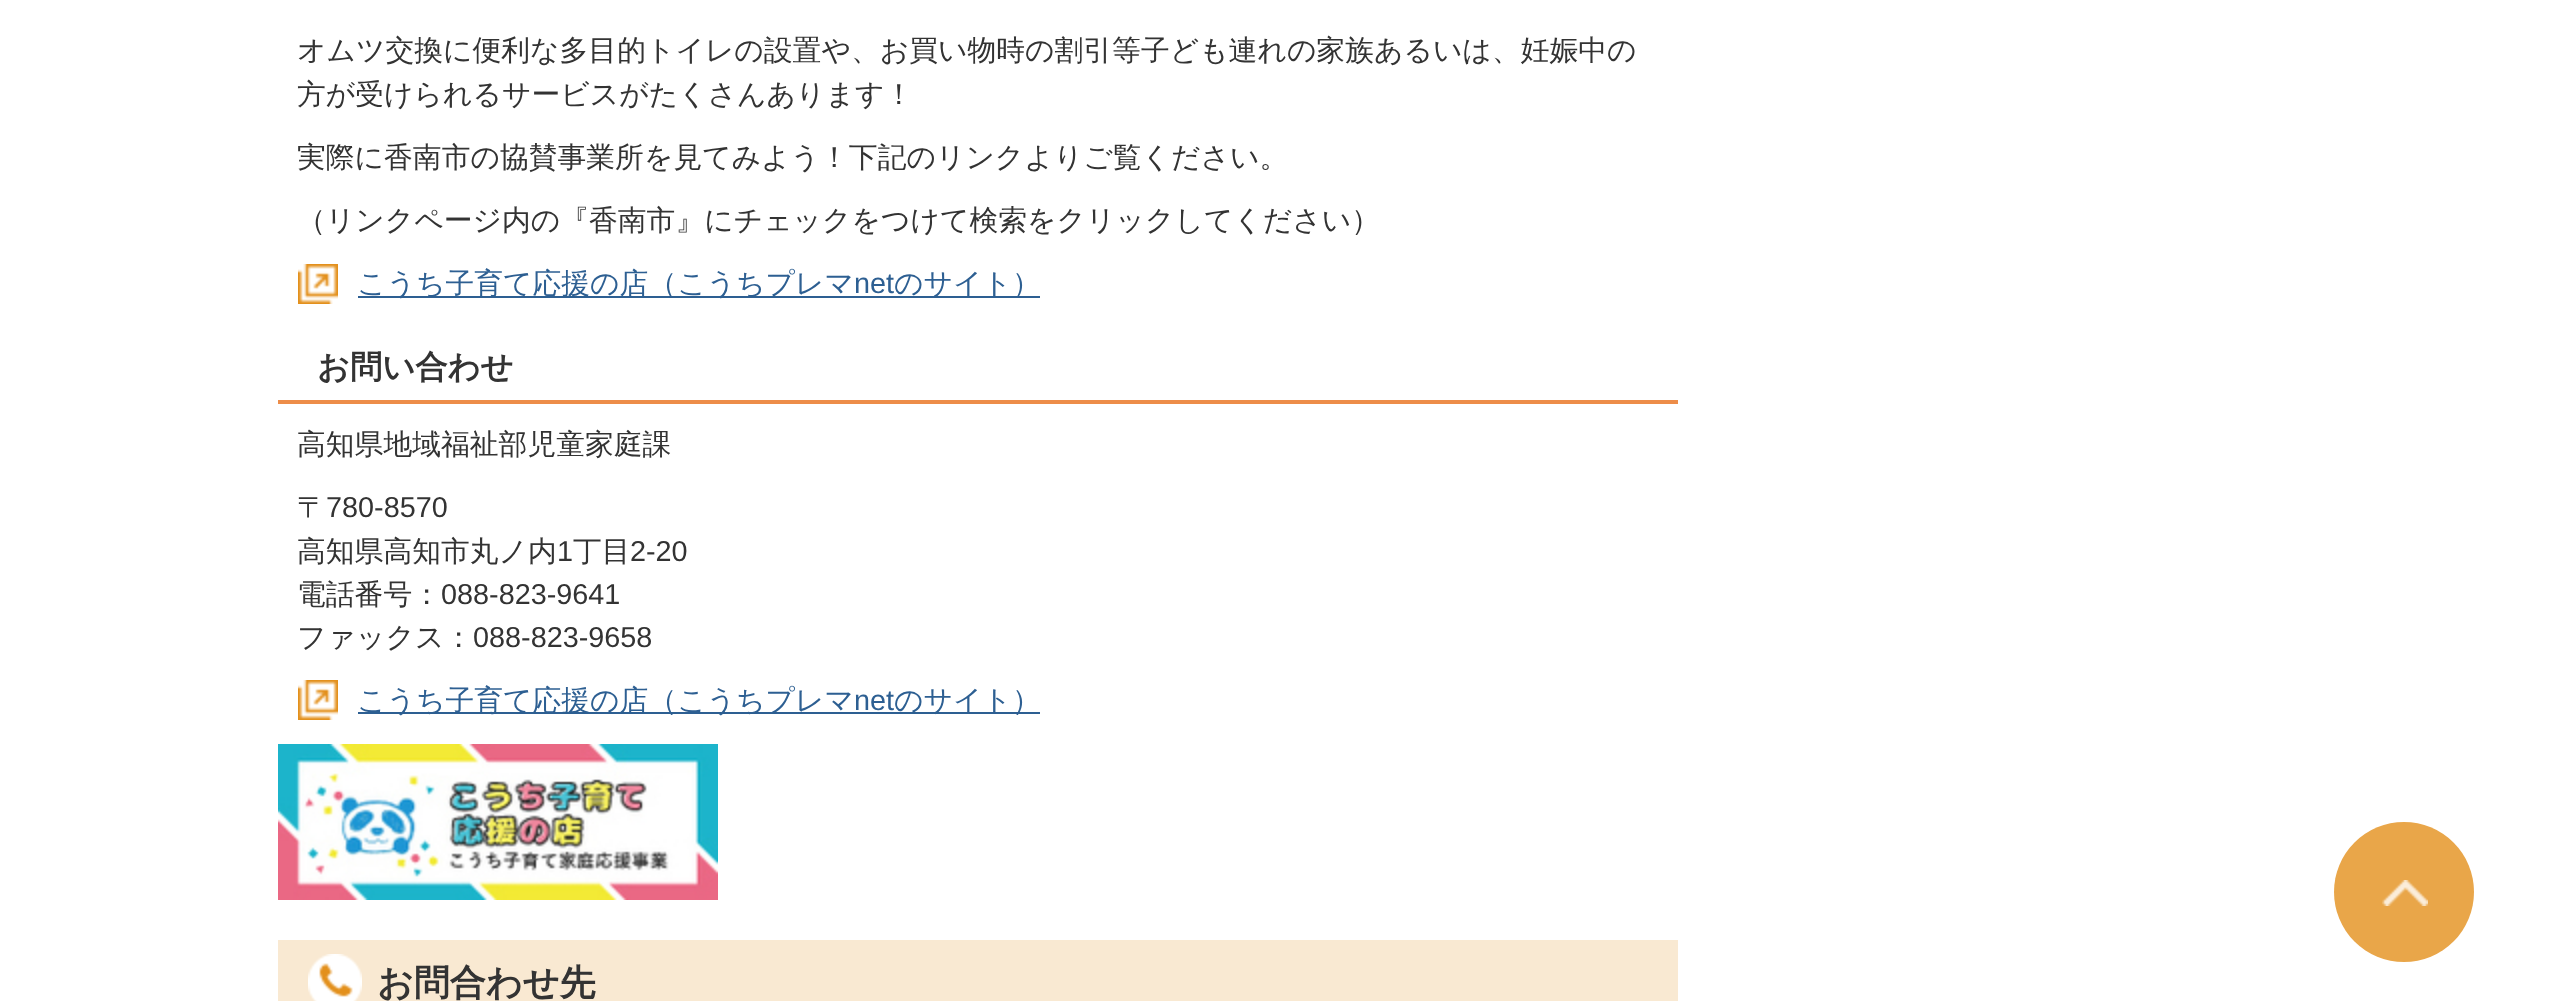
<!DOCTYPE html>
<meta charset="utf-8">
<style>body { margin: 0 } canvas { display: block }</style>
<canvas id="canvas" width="2554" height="1001"></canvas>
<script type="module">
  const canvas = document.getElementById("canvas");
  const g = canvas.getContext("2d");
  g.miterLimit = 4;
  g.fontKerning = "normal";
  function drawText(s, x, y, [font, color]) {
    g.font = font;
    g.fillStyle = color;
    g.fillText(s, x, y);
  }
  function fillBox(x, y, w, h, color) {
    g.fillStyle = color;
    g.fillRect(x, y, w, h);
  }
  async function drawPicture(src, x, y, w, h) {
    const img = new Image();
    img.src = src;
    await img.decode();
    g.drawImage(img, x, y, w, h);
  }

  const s1 = ["500 28.8px WenQuanYi Zen Hei", "#333333"];
  const s2 = ["500 28.8px WenQuanYi Zen Hei", "#2D5F92"];
  const s3 = ["28.8px Liberation Sans", "#2D5F92"];
  const s4 = ["bold 32.25px WenQuanYi Zen Hei", "#333333"];
  const s5 = ["28.8px Liberation Sans", "#333333"];
  const s6 = ["bold 36px WenQuanYi Zen Hei", "#333333"];

  fillBox(0, 0, 2554, 1001, "#FFFFFF");
  drawText("オムツ交換に便利な多目的トイレの設置や、お買い物時の割引等子ども連れの家族あるいは、妊娠中の", 297, 60, s1);
  drawText("方が受けられるサービスがたくさんあります！", 297, 104, s1);
  drawText("実際に香南市の協賛事業所を見てみよう！下記のリンクよりご覧ください。", 297, 167, s1);
  drawText("（リンクページ内の『香南市』にチェックをつけて検索をクリックしてください）", 297, 230, s1);
  await drawPicture("pic1.png", 298, 264, 40, 40);
  fillBox(358, 296, 682, 2, "#2D5F92");
  drawText("こうち子育て応援の店（こうちプレマ", 357, 293, s2);
  drawText("net", 854, 293, s3);
  drawText("のサイト）", 894, 293, s2);
  fillBox(278, 400, 1400, 4, "#ED8D49");
  drawText("お問い合わせ", 317, 378, s4);
  drawText("高知県地域福祉部児童家庭課", 297, 454, s1);
  drawText("〒", 297, 517, s1);
  drawText("780-8570", 326, 517, s5);
  drawText("高知県高知市丸ノ内", 297, 561, s1);
  drawText("1", 557, 561, s5);
  drawText("丁目", 573, 561, s1);
  drawText("2-20", 630, 561, s5);
  drawText("電話番号：", 297, 604, s1);
  drawText("088-823-9641", 441, 604, s5);
  drawText("ファックス：", 297, 647, s1);
  drawText("088-823-9658", 473, 647, s5);
  await drawPicture("pic1.png", 298, 680, 40, 40);
  fillBox(358, 712, 682, 2, "#2D5F92");
  drawText("こうち子育て応援の店（こうちプレマ", 357, 710, s2);
  drawText("net", 854, 710, s3);
  drawText("のサイト）", 894, 710, s2);
  await drawPicture("pic2.png", 278, 744, 440, 156);
  fillBox(278, 940, 1400, 61, "#F9E9D2");
  await drawPicture("pic3.png", 308, 954, 54, 47);
  drawText("お問合わせ先", 377, 995, s6);
  g.fillStyle = "#E9A649";
  g.beginPath();
  g.arc(2404, 892, 70, 0, Math.PI * 2);
  g.fill();
  await drawPicture("pic4.png", 2382, 880, 46, 26);
</script>
